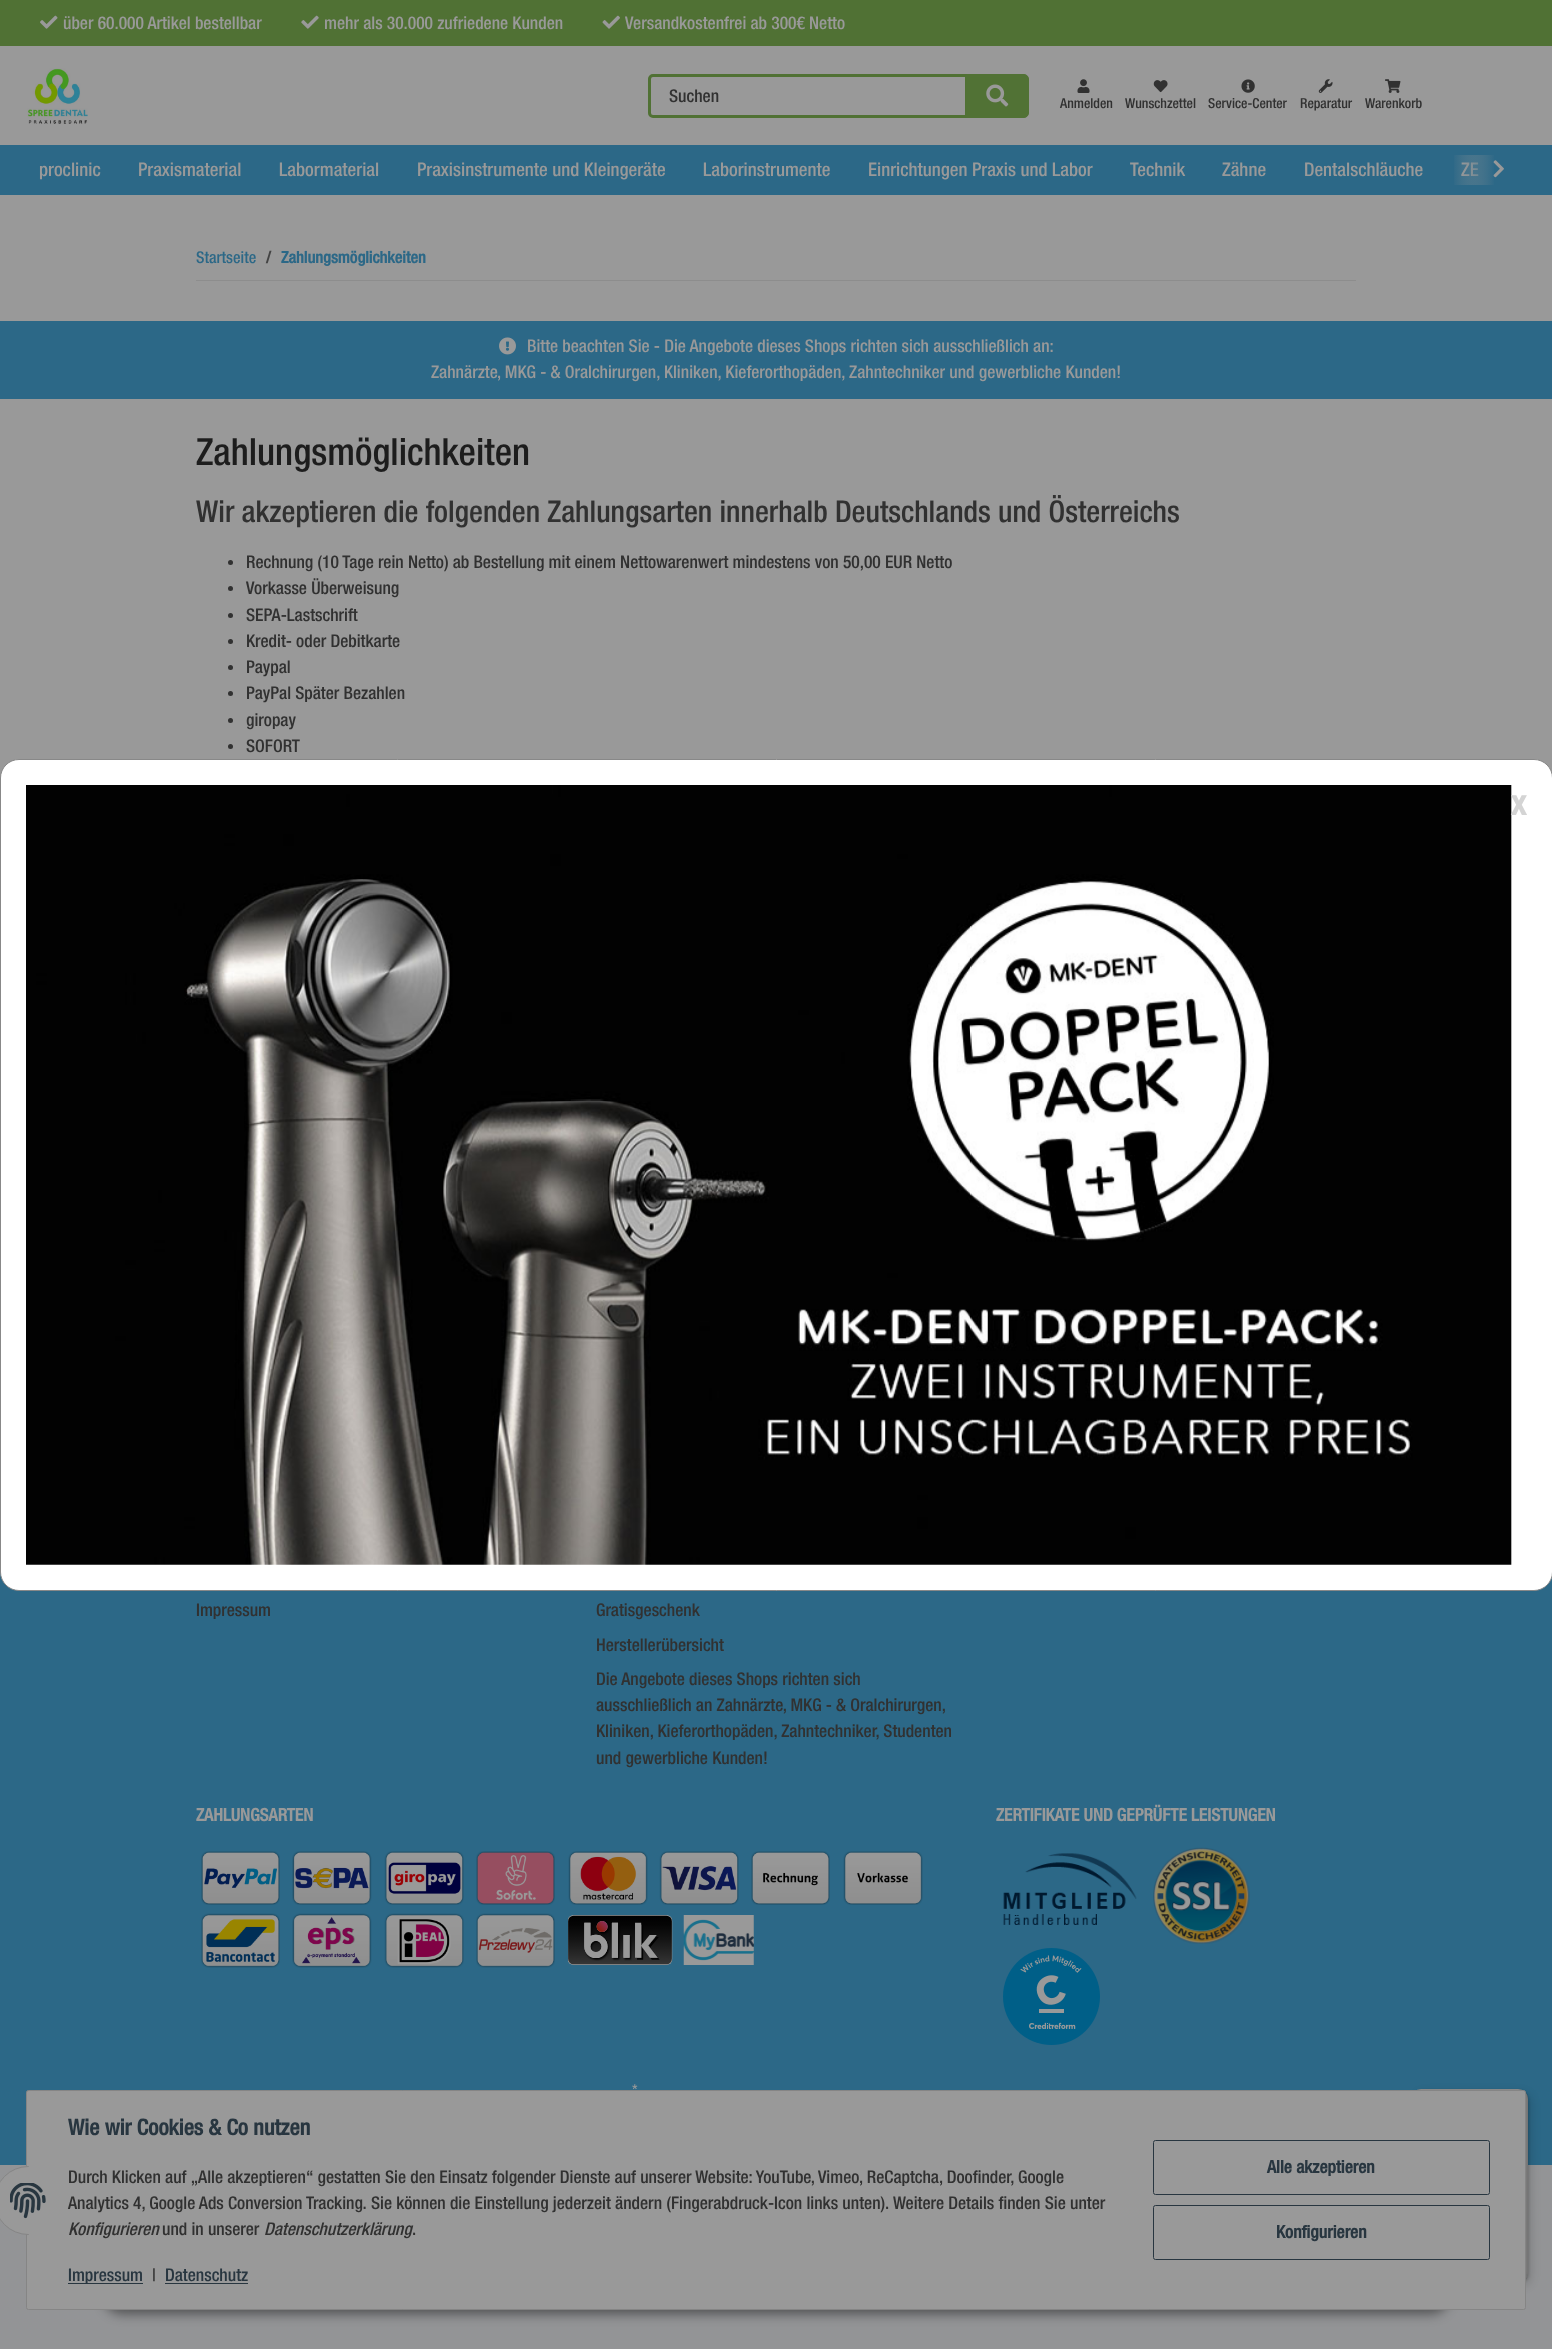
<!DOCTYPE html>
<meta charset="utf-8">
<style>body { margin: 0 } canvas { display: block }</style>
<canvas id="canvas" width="1552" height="2349"></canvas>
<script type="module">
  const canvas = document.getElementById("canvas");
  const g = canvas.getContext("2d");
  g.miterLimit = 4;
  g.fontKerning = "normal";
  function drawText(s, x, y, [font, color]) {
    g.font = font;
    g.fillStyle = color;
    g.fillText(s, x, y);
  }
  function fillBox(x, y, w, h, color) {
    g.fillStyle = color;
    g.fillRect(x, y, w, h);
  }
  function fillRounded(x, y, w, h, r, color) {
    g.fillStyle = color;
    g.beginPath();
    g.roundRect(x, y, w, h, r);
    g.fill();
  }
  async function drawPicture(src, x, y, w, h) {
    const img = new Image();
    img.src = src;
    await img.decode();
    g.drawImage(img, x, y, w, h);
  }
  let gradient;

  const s1 = ["500 17.5px Helvetica Neue", "#999999"];
  const s2 = ["500 17.5px Helvetica Neue", "#313131"];
  const s3 = ["500 13.75px Helvetica Neue", "#313131"];
  const s4 = ["500 18.75px Helvetica Neue", "#999999"];
  const s5 = ["500 16.25px Helvetica Neue", "#2C6887"];
  const s6 = ["bold 16.25px Helvetica Neue", "#434343"];
  const s7 = ["bold 16.25px Helvetica Neue", "#2C6887"];
  const s8 = ["500 37.5px Helvetica Neue", "#1D1D1D"];
  const s9 = ["500 30px Helvetica Neue", "#313131"];
  const s10 = ["bold 35px Helvetica Neue", "#D4D4D4"];
  const s11 = ["bold 17.5px Helvetica Neue", "#999999"];
  const s12 = ["500 15px Helvetica Neue", "#999999"];
  const s13 = ["bold 22px Helvetica Neue", "#283640"];
  const s14 = ["italic 500 17.5px Helvetica Neue", "#313131"];
  const s15 = ["500 17.5px Helvetica Neue", "#283640"];
  const s16 = ["bold 17.5px Helvetica Neue", "#283640"];

  fillBox(0, 0, 1552, 2349, "#939496");
  fillBox(0, 0, 1552, 46, "#507134");
  await drawPicture("pic1.png", 40, 15, 18, 14);
  drawText("über 60.000 Artikel bestellbar", 63, 29, s1);
  await drawPicture("pic2.png", 301, 15, 18, 14);
  drawText("mehr als 30.000 zufriedene Kunden", 324, 29, s1);
  await drawPicture("pic3.png", 602, 15, 18, 14);
  drawText("Versandkostenfrei ab 300€ Netto", 625, 29, s1);
  fillBox(0, 46, 1552, 99, "#999999");
  await drawPicture("pic4.png", 27, 68, 61, 56);
  g.beginPath();
  g.roundRect(649.5, 75.5, 317, 41, [3.5, 0, 0, 3.5]);
  g.strokeStyle = "#507134";
  g.lineWidth = 3;
  g.stroke();
  drawText("Suchen", 669, 102, s2);
  g.fillStyle = "#517235";
  g.beginPath();
  g.roundRect(966.5, 74.5, 62, 43, [0, 4.5, 4.5, 0]);
  g.fill();
  g.strokeStyle = "#517235";
  g.lineWidth = 1;
  g.stroke();
  await drawPicture("pic5.png", 986, 84, 23, 23);
  await drawPicture("pic6.png", 1077, 79, 13, 14);
  drawText("Anmelden", 1060, 108, s3);
  await drawPicture("pic7.png", 1153, 80, 15, 13);
  drawText("Wunschzettel", 1125, 108, s3);
  await drawPicture("pic8.png", 1241, 79, 14, 14);
  drawText("Service-Center", 1208, 108, s3);
  await drawPicture("pic9.png", 1318, 79, 15, 14);
  drawText("Reparatur", 1300, 108, s3);
  await drawPicture("pic10.png", 1385, 79, 16, 14);
  drawText("Warenkorb", 1365, 108, s3);
  fillBox(0, 145, 1552, 50, "#2C6887");
  drawText("proclinic", 39, 176, s4);
  drawText("Praxismaterial", 138, 176, s4);
  drawText("Labormaterial", 279, 176, s4);
  drawText("Praxisinstrumente und Kleingeräte", 417, 176, s4);
  drawText("Laborinstrumente", 703, 176, s4);
  drawText("Einrichtungen Praxis und Labor", 868, 176, s4);
  drawText("Technik", 1130, 176, s4);
  drawText("Zähne", 1222, 176, s4);
  drawText("Dentalschläuche", 1304, 176, s4);
  drawText("ZE", 1461, 176, s4);
  gradient = g.createLinearGradient(1453, 170, 1513, 170);
  gradient.addColorStop(0, "rgba(153, 153, 153, 0.01)");
  gradient.addColorStop(0.7, "#2C6887");
  g.fillStyle = gradient;
  g.fillRect(1454, 155, 40, 30);
  await drawPicture("pic11.png", 1493, 160, 11, 18);
  fillBox(0, 195, 1552, 583, "#999999");
  fillBox(196, 280, 1160, 1, "#8D8D8D");
  drawText("Startseite", 196, 263, s5);
  drawText("/", 266, 263, s6);
  drawText("Zahlungsmöglichkeiten", 281, 263, s7);
  fillBox(0, 321, 1552, 78, "#2C6887");
  await drawPicture("pic12.png", 499, 337, 17, 18);
  drawText("Bitte beachten Sie - Die Angebote dieses Shops richten sich ausschließlich an:", 527, 352, s1);
  drawText("Zahnärzte, MKG - & Oralchirurgen, Kliniken, Kieferorthopäden, Zahntechniker und gewerbliche Kunden!", 431, 378, s1);
  drawText("Zahlungsmöglichkeiten", 196, 465, s8);
  drawText("Wir akzeptieren die folgenden Zahlungsarten innerhalb Deutschlands und Österreichs", 196, 522, s9);
  g.beginPath();
  g.arc(230.5, 562.5, 2.5, 0, Math.PI * 2);
  g.fill();
  drawText("Rechnung (10 Tage rein Netto) ab Bestellung mit einem Nettowarenwert mindestens von 50,00 EUR Netto", 246, 568, s2);
  g.beginPath();
  g.arc(230.5, 588.5, 2.5, 0, Math.PI * 2);
  g.fill();
  drawText("Vorkasse Überweisung", 246, 594, s2);
  g.beginPath();
  g.arc(230.5, 615.5, 2.5, 0, Math.PI * 2);
  g.fill();
  drawText("SEPA-Lastschrift", 246, 621, s2);
  g.beginPath();
  g.arc(230.5, 641.5, 2.5, 0, Math.PI * 2);
  g.fill();
  drawText("Kredit- oder Debitkarte", 246, 647, s2);
  g.beginPath();
  g.arc(230.5, 667.5, 2.5, 0, Math.PI * 2);
  g.fill();
  drawText("Paypal", 246, 673, s2);
  g.beginPath();
  g.arc(230.5, 693.5, 2.5, 0, Math.PI * 2);
  g.fill();
  drawText("PayPal Später Bezahlen", 246, 699, s2);
  g.beginPath();
  g.arc(230.5, 720.5, 2.5, 0, Math.PI * 2);
  g.fill();
  drawText("giropay", 246, 726, s2);
  g.beginPath();
  g.arc(230.5, 746.5, 2.5, 0, Math.PI * 2);
  g.fill();
  drawText("SOFORT", 246, 752, s2);
  fillBox(0, 1572, 1552, 593, "#2C6887");
  g.fillStyle = "#FFFFFF";
  g.beginPath();
  g.roundRect(0.5, 759.5, 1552, 831, 18.5);
  g.fill();
  g.strokeStyle = "#888888";
  g.stroke();
  await drawPicture("pic13.png", 26, 785, 1486, 780);
  drawText("x", 1511, 815, s10);
  drawText("Impressum", 196, 1616, s2);
  drawText("Gratisgeschenk", 596, 1616, s2);
  drawText("Herstellerübersicht", 596, 1651, s2);
  drawText("Die Angebote dieses Shops richten sich", 596, 1685, s2);
  drawText("ausschließlich an Zahnärzte, MKG - & Oralchirurgen,", 596, 1711, s2);
  drawText("Kliniken, Kieferorthopäden, Zahntechniker, Studenten", 596, 1737, s2);
  drawText("und gewerbliche Kunden!", 596, 1764, s2);
  drawText("ZAHLUNGSARTEN", 196, 1821, s11);
  await drawPicture("pic14.png", 201, 1851, 79, 54);
  await drawPicture("pic15.png", 292, 1851, 80, 54);
  await drawPicture("pic16.png", 384, 1851, 80, 54);
  await drawPicture("pic17.png", 476, 1851, 79, 54);
  await drawPicture("pic18.png", 568, 1851, 80, 54);
  await drawPicture("pic19.png", 659, 1851, 80, 54);
  await drawPicture("pic20.png", 751, 1851, 79, 54);
  await drawPicture("pic21.png", 843, 1851, 80, 54);
  await drawPicture("pic22.png", 201, 1913, 79, 55);
  await drawPicture("pic23.png", 292, 1913, 80, 55);
  await drawPicture("pic24.png", 384, 1913, 80, 55);
  await drawPicture("pic25.png", 476, 1913, 79, 55);
  await drawPicture("pic26.png", 568, 1915, 105, 50);
  await drawPicture("pic27.png", 683, 1915, 71, 50);
  drawText("ZERTIFIKATE UND GEPRÜFTE LEISTUNGEN", 996, 1821, s11);
  await drawPicture("pic28.png", 1003, 1853, 134, 72);
  await drawPicture("pic29.png", 1153, 1847, 97, 97);
  await drawPicture("pic30.png", 1003, 1948, 97, 97);
  drawText("*", 632, 2095, s12);
  g.fillStyle = "rgba(0, 0, 0, 0.15)";
  g.filter = "blur(5px)";
  g.beginPath();
  g.roundRect(1415, 2093, 116, 193, 10);
  g.fill();
  g.filter = "none";
  g.filter = "blur(1px)";
  g.beginPath();
  g.roundRect(1413, 2090, 116, 194, 10);
  g.fill();
  g.filter = "none";
  fillRounded(1411, 2089, 117, 194, 10, "#999999");
  g.fillStyle = "rgba(0, 0, 0, 0.1)";
  g.beginPath();
  g.moveTo(1422, 2090);
  g.lineTo(1519, 2090);
  g.bezierCurveTo(1521, 2090, 1524, 2091, 1526, 2093);
  g.bezierCurveTo(1524, 2090, 1521, 2089, 1518, 2089);
  g.lineTo(1421, 2089);
  g.bezierCurveTo(1415, 2089, 1411, 2093, 1411, 2099);
  g.lineTo(1411, 2273);
  g.bezierCurveTo(1411, 2277, 1413, 2280, 1416, 2282);
  g.bezierCurveTo(1414, 2280, 1412, 2277, 1412, 2274);
  g.lineTo(1412, 2100);
  g.bezierCurveTo(1412, 2094, 1417, 2090, 1422, 2090);
  g.closePath();
  g.fill();
  g.fillStyle = "rgba(0, 0, 0, 0.2)";
  g.beginPath();
  g.moveTo(1412, 2277);
  g.bezierCurveTo(1414, 2281, 1417, 2283, 1421, 2283);
  g.lineTo(1518, 2283);
  g.bezierCurveTo(1524, 2283, 1528, 2279, 1528, 2273);
  g.lineTo(1528, 2099);
  g.bezierCurveTo(1528, 2095, 1526, 2092, 1522, 2090);
  g.bezierCurveTo(1525, 2092, 1526, 2095, 1526, 2098);
  g.lineTo(1526, 2271);
  g.bezierCurveTo(1526, 2277, 1522, 2281, 1516, 2281);
  g.lineTo(1420, 2281);
  g.bezierCurveTo(1417, 2281, 1414, 2280, 1412, 2277);
  g.closePath();
  g.fill();
  g.fillStyle = "rgba(30, 30, 30, 0.2)";
  g.beginPath();
  g.moveTo(1412, 2278);
  g.bezierCurveTo(1414, 2281, 1417, 2283, 1421, 2283);
  g.lineTo(1518, 2283);
  g.bezierCurveTo(1524, 2283, 1528, 2279, 1528, 2273);
  g.lineTo(1528, 2099);
  g.bezierCurveTo(1528, 2096, 1527, 2093, 1525, 2091);
  g.bezierCurveTo(1526, 2093, 1527, 2095, 1527, 2098);
  g.lineTo(1527, 2272);
  g.bezierCurveTo(1527, 2277, 1522, 2282, 1517, 2282);
  g.lineTo(1420, 2282);
  g.bezierCurveTo(1417, 2282, 1414, 2280, 1412, 2278);
  g.closePath();
  g.fill();
  g.fillStyle = "rgba(153, 153, 153, 0.3)";
  g.beginPath();
  g.moveTo(1411, 2272);
  g.lineTo(1411, 2273);
  g.bezierCurveTo(1411, 2279, 1415, 2283, 1421, 2283);
  g.lineTo(1518, 2283);
  g.bezierCurveTo(1524, 2283, 1528, 2279, 1528, 2273);
  g.lineTo(1528, 2099);
  g.bezierCurveTo(1528, 2095, 1526, 2092, 1523, 2090);
  g.bezierCurveTo(1525, 2092, 1527, 2095, 1527, 2098);
  g.lineTo(1527, 2272);
  g.bezierCurveTo(1527, 2277, 1522, 2282, 1517, 2282);
  g.lineTo(1421, 2282);
  g.bezierCurveTo(1415, 2282, 1411, 2277, 1411, 2272);
  g.closePath();
  g.fill();
  g.fillStyle = "rgba(0, 0, 0, 0.45)";
  g.filter = "blur(6px)";
  g.beginPath();
  g.roundRect(103, 2274, 1347, 40, 20);
  g.fill();
  g.filter = "none";
  g.fillStyle = "#999999";
  g.beginPath();
  g.roundRect(26.5, 2090.5, 1499, 219, 2);
  g.fill();
  g.strokeStyle = "#858585";
  g.stroke();
  g.beginPath();
  g.arc(28.5, 2200.5, 34, 0, Math.PI * 2);
  g.fill();
  g.stroke();
  fillBox(29, 2166, 34, 69, "#999999");
  await drawPicture("pic31.png", 10, 2183, 36, 36);
  drawText("Wie wir Cookies & Co nutzen", 68, 2135, s13);
  drawText("Durch Klicken auf „Alle akzeptieren“ gestatten Sie den Einsatz folgender Dienste auf unserer Website: YouTube, Vimeo, ReCaptcha, Doofinder, Google", 68, 2183, s2);
  drawText("Analytics 4, Google Ads Conversion Tracking. Sie können die Einstellung jederzeit ändern (Fingerabdruck-Icon links unten). Weitere Details finden Sie unter", 68, 2209, s2);
  drawText("Konfigurieren", 68, 2235, s14);
  drawText("und in unserer", 162, 2235, s2);
  drawText("Datenschutzerklärung", 264, 2235, s14);
  drawText(".", 412, 2235, s2);
  fillBox(68, 2283, 75, 1, "#283640");
  drawText("Impressum", 68, 2281, s15);
  drawText("|", 152, 2281, s2);
  drawText("Datenschutz", 165, 2281, s15);
  fillBox(165, 2283, 83, 1, "#283640");
  g.beginPath();
  g.roundRect(1153.5, 2140.5, 336, 54, 2);
  g.strokeStyle = "#283640";
  g.stroke();
  drawText("Alle akzeptieren", 1267, 2173, s16);
  g.beginPath();
  g.roundRect(1153.5, 2205.5, 336, 54, 2);
  g.stroke();
  drawText("Konfigurieren", 1276, 2238, s16);
</script>
